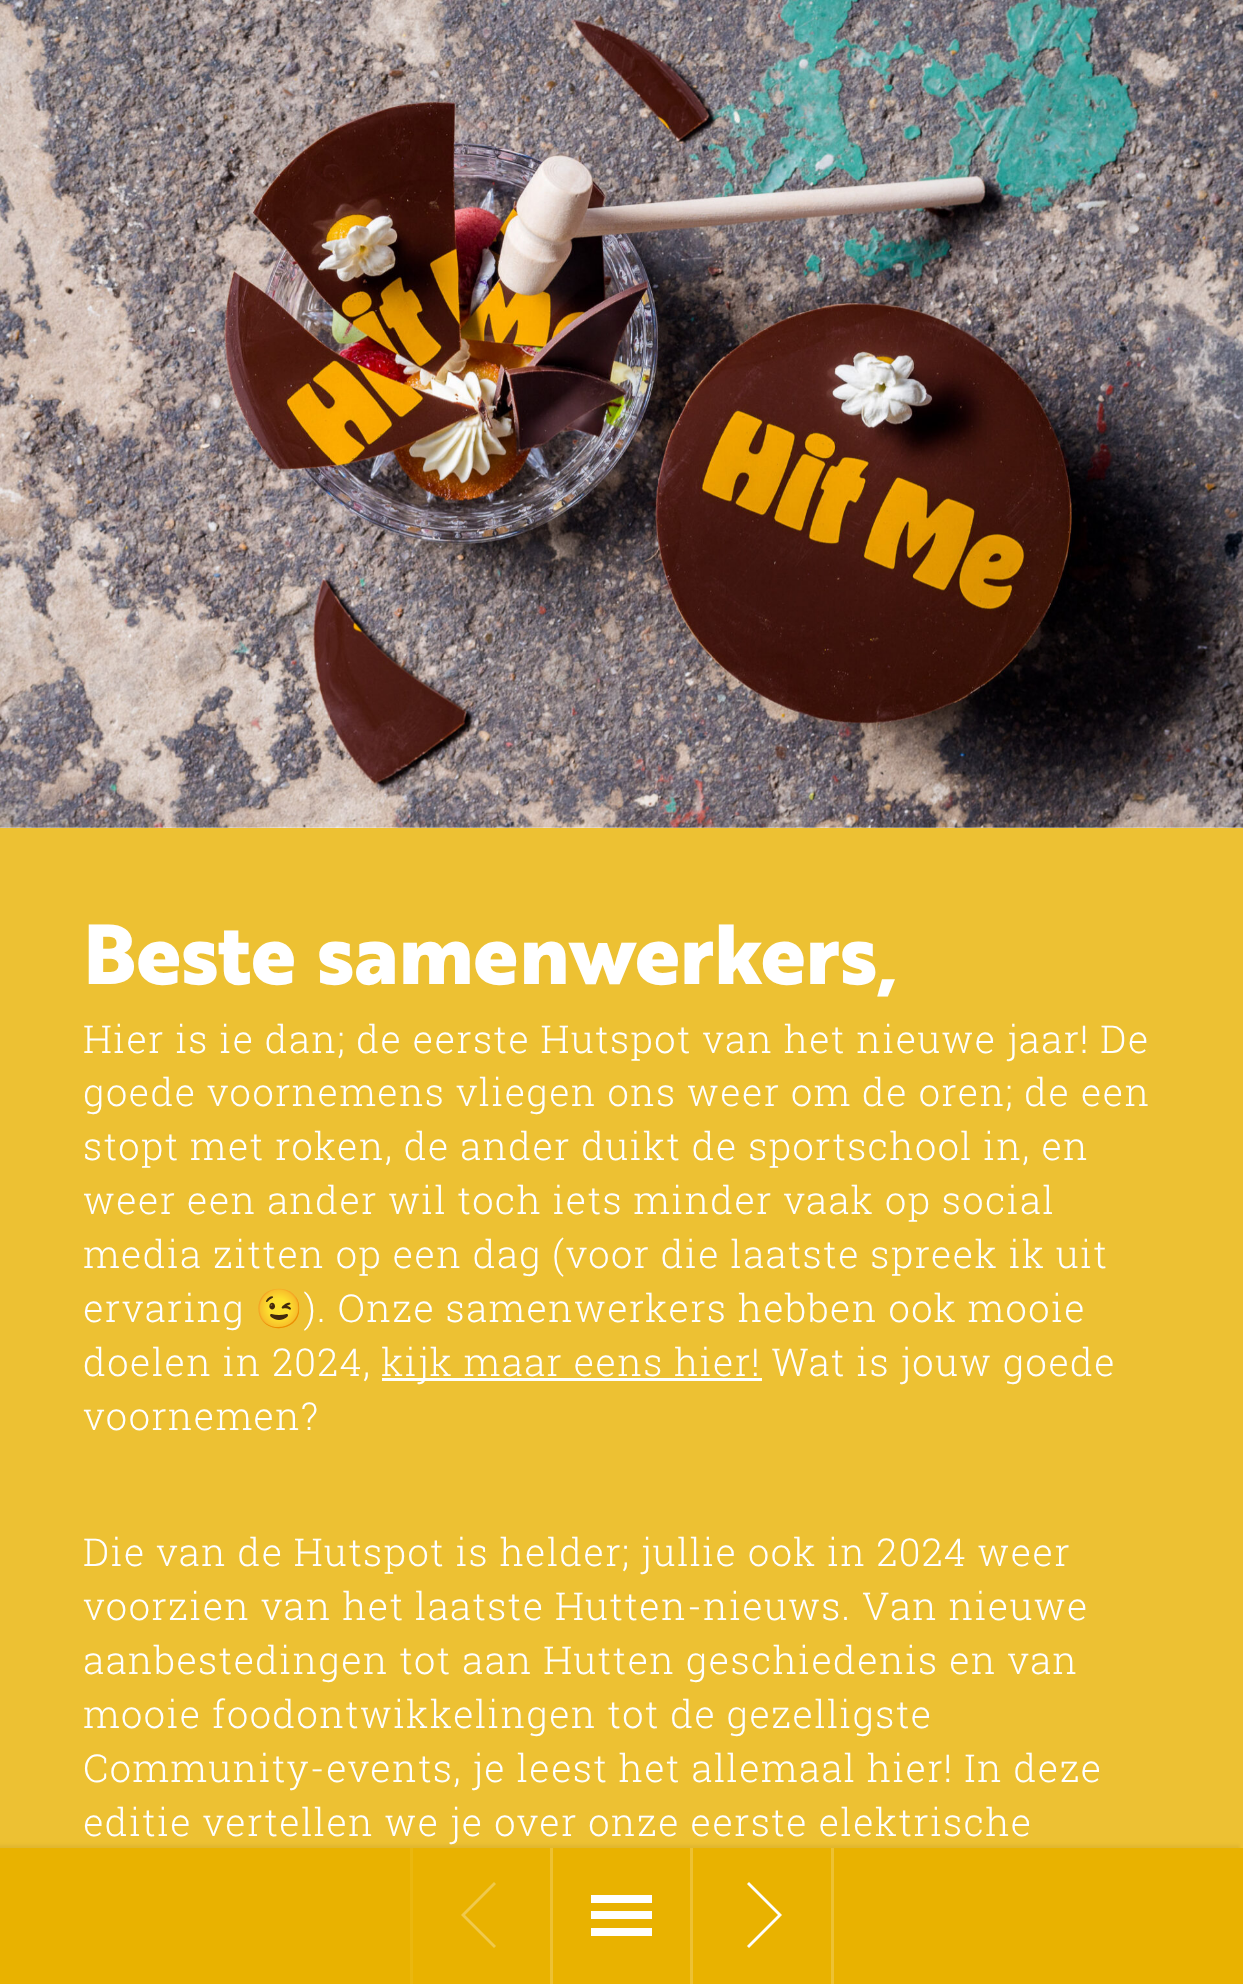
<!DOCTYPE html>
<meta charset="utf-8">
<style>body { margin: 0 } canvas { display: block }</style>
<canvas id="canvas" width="1243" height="1984"></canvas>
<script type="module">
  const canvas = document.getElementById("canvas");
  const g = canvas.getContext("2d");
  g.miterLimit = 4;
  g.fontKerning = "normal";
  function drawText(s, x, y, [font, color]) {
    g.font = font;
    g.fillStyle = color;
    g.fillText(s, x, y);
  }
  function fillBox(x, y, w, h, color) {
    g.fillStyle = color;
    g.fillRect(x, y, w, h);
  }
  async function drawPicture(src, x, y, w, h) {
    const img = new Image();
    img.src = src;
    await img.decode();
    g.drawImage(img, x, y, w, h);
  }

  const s1 = ["800 82.5px 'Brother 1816'", "#FFFFFF"];
  const s2 = ["300 38.5px Roboto Slab", "#FFFFFF"];
  const s3 = ["38.5px Noto Color Emoji", "#FFFFFF"];

  fillBox(0, 0, 1243, 1984, "#FFFFFF");
  await drawPicture("pic1.png", 0, 0, 1243, 828);
  fillBox(0, 828, 1243, 1020, "#EDC133");
  drawText("Beste samenwerkers,", 83, 984, s1);
  g.letterSpacing = "1.15px";
  drawText("Hier is ie dan; de eerste Hutspot van het nieuwe jaar! De", 83, 1053, s2);
  drawText("goede voornemens vliegen ons weer om de oren; de een", 83, 1106, s2);
  drawText("stopt met roken, de ander duikt de sportschool in, en", 83, 1160, s2);
  drawText("weer een ander wil toch iets minder vaak op social", 83, 1214, s2);
  drawText("media zitten op een dag (voor die laatste spreek ik uit", 83, 1268, s2);
  drawText("ervaring", 83, 1322, s2);
  drawText("😉", 255, 1322, s3);
  drawText("). Onze samenwerkers hebben ook mooie", 304, 1322, s2);
  drawText("doelen in 2024,", 83, 1376, s2);
  fillBox(382, 1378, 380, 3, "#FFFFFF");
  drawText("kijk maar eens hier! Wat is jouw goede", 381, 1376, s2);
  drawText("voornemen?", 83, 1430, s2);
  drawText("Die van de Hutspot is helder; jullie ook in 2024 weer", 83, 1566, s2);
  drawText("voorzien van het laatste Hutten-nieuws. Van nieuwe", 83, 1620, s2);
  drawText("aanbestedingen tot aan Hutten geschiedenis en van", 83, 1674, s2);
  drawText("mooie foodontwikkelingen tot de gezelligste", 83, 1728, s2);
  drawText("Community-events, je leest het allemaal hier! In deze", 83, 1782, s2);
  drawText("editie vertellen we je over onze eerste elektrische", 83, 1836, s2);
  g.fillStyle = "rgba(0, 0, 0, 0.05)";
  g.filter = "blur(1.5px)";
  g.beginPath();
  g.rect(-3, 1845, 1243, 138);
  g.fill();
  g.filter = "none";
  fillBox(0, 1848, 1243, 136, "#E9B200");
  fillBox(410, 1848, 3, 136, "#EAB70F");
  g.fillStyle = "#F0C94D";
  g.beginPath();
  g.moveTo(494, 1948);
  g.lineTo(496, 1946);
  g.lineTo(465, 1915);
  g.lineTo(496, 1884);
  g.lineTo(494, 1882);
  g.lineTo(461, 1915);
  g.closePath();
  g.fill();
  fillBox(690, 1848, 3, 136, "#EDC133");
  fillBox(550, 1848, 3, 136, "#EDC133");
  fillBox(591, 1911, 61, 8, "#FFFFFF");
  fillBox(591, 1895, 61, 8, "#FFFFFF");
  fillBox(591, 1928, 61, 8, "#FFFFFF");
  fillBox(831, 1848, 3, 136, "#EDC133");
  g.fillStyle = "#FFFFFF";
  g.beginPath();
  g.moveTo(749, 1948);
  g.lineTo(747, 1946);
  g.lineTo(778, 1915);
  g.lineTo(747, 1884);
  g.lineTo(749, 1882);
  g.lineTo(782, 1915);
  g.closePath();
  g.fill();
</script>
